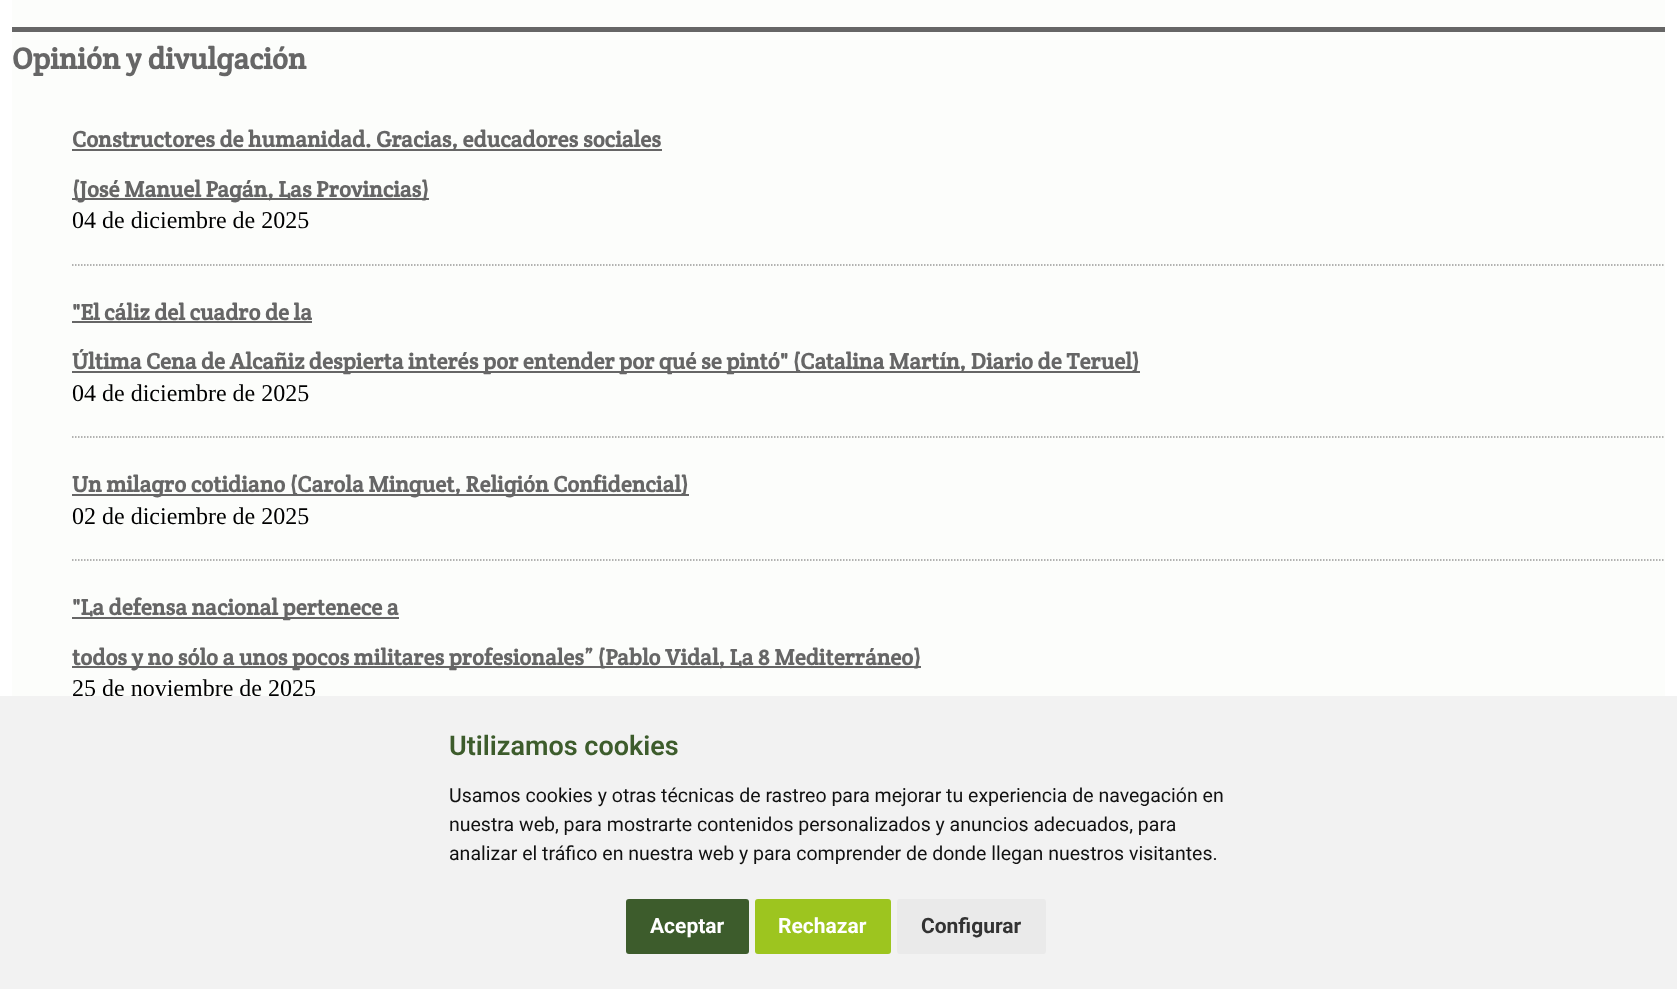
<!DOCTYPE html>
<meta charset="utf-8">
<style>body { margin: 0 } canvas { display: block }</style>
<canvas id="canvas" width="1677" height="989"></canvas>
<script type="module">
  const canvas = document.getElementById("canvas");
  const g = canvas.getContext("2d");
  g.miterLimit = 4;
  g.fontKerning = "normal";
  function drawText(s, x, y, [font, color]) {
    g.font = font;
    g.fillStyle = color;
    g.fillText(s, x, y);
  }
  function fillBox(x, y, w, h, color) {
    g.fillStyle = color;
    g.fillRect(x, y, w, h);
  }
  function fillRounded(x, y, w, h, r, color) {
    g.fillStyle = color;
    g.beginPath();
    g.roundRect(x, y, w, h, r);
    g.fill();
  }

  const s1 = ["bold 30px Crete Round", "#666666"];
  const s2 = ["bold 22.5px Crete Round", "#666666"];
  const s3 = ["24px Liberation Serif", "#000000"];
  const s4 = ["600 27px Roboto", "#3D5C2C"];
  const s5 = ["19.5px Roboto", "#111111"];
  const s6 = ["bold 21px Roboto", "#FFFFFF"];
  const s7 = ["bold 21px Roboto", "#333333"];

  fillBox(0, 0, 1677, 989, "#FFFFFF");
  fillBox(12, 0, 1653, 696, "#FCFDFB");
  fillBox(12, 27, 1653, 5, "#666666");
  drawText("Opinión y divulgación", 12, 69, s1);
  g.beginPath();
  g.moveTo(72, 265);
  g.lineTo(1665, 265);
  g.strokeStyle = "#999999";
  g.lineWidth = 1.5;
  g.setLineDash([1.5, 1.5]);
  g.stroke();
  fillBox(72, 149, 590, 2, "#666666");
  drawText("Constructores de humanidad. Gracias, educadores sociales", 72, 147, s2);
  fillBox(72, 198, 357, 2, "#666666");
  drawText("(José Manuel Pagán, Las Provincias)", 72, 197, s2);
  drawText("04 de diciembre de 2025", 72, 228, s3);
  g.beginPath();
  g.moveTo(72, 437);
  g.lineTo(1665, 437);
  g.stroke();
  drawText("\"El cáliz del cuadro de la", 72, 320, s2);
  fillBox(72, 321, 240, 2, "#666666");
  fillBox(72, 371, 1068, 2, "#666666");
  drawText("Última Cena de Alcañiz despierta interés por entender por qué se pintó\" (Catalina Martín, Diario de Teruel)", 72, 369, s2);
  drawText("04 de diciembre de 2025", 72, 401, s3);
  g.beginPath();
  g.moveTo(72, 560);
  g.lineTo(1665, 560);
  g.stroke();
  fillBox(72, 494, 617, 2, "#666666");
  drawText("Un milagro cotidiano (Carola Minguet, Religión Confidencial)", 72, 492, s2);
  drawText("02 de diciembre de 2025", 72, 524, s3);
  fillBox(72, 617, 327, 2, "#666666");
  drawText("\"La defensa nacional pertenece a", 72, 615, s2);
  fillBox(72, 666, 849, 2, "#666666");
  drawText("todos y no sólo a unos pocos militares profesionales” (Pablo Vidal, La 8 Mediterráneo)", 72, 665, s2);
  drawText("25 de noviembre de 2025", 72, 696, s3);
  fillBox(0, 696, 1677, 293, "#F2F2F2");
  drawText("Utilizamos cookies", 449, 755, s4);
  drawText("Usamos cookies y otras técnicas de rastreo para mejorar tu experiencia de navegación en", 449, 802, s5);
  drawText("nuestra web, para mostrarte contenidos personalizados y anuncios adecuados, para", 449, 831, s5);
  drawText("analizar el tráfico en nuestra web y para comprender de donde llegan nuestros visitantes.", 449, 860, s5);
  fillRounded(626, 899, 123, 55, 3, "#3D5C2C");
  drawText("Aceptar", 650, 933, s6);
  fillRounded(755, 899, 136, 55, 3, "#9DC51F");
  drawText("Rechazar", 778, 933, s6);
  fillRounded(897, 899, 149, 55, 3, "#EAEAEA");
  drawText("Configurar", 921, 933, s7);
</script>
